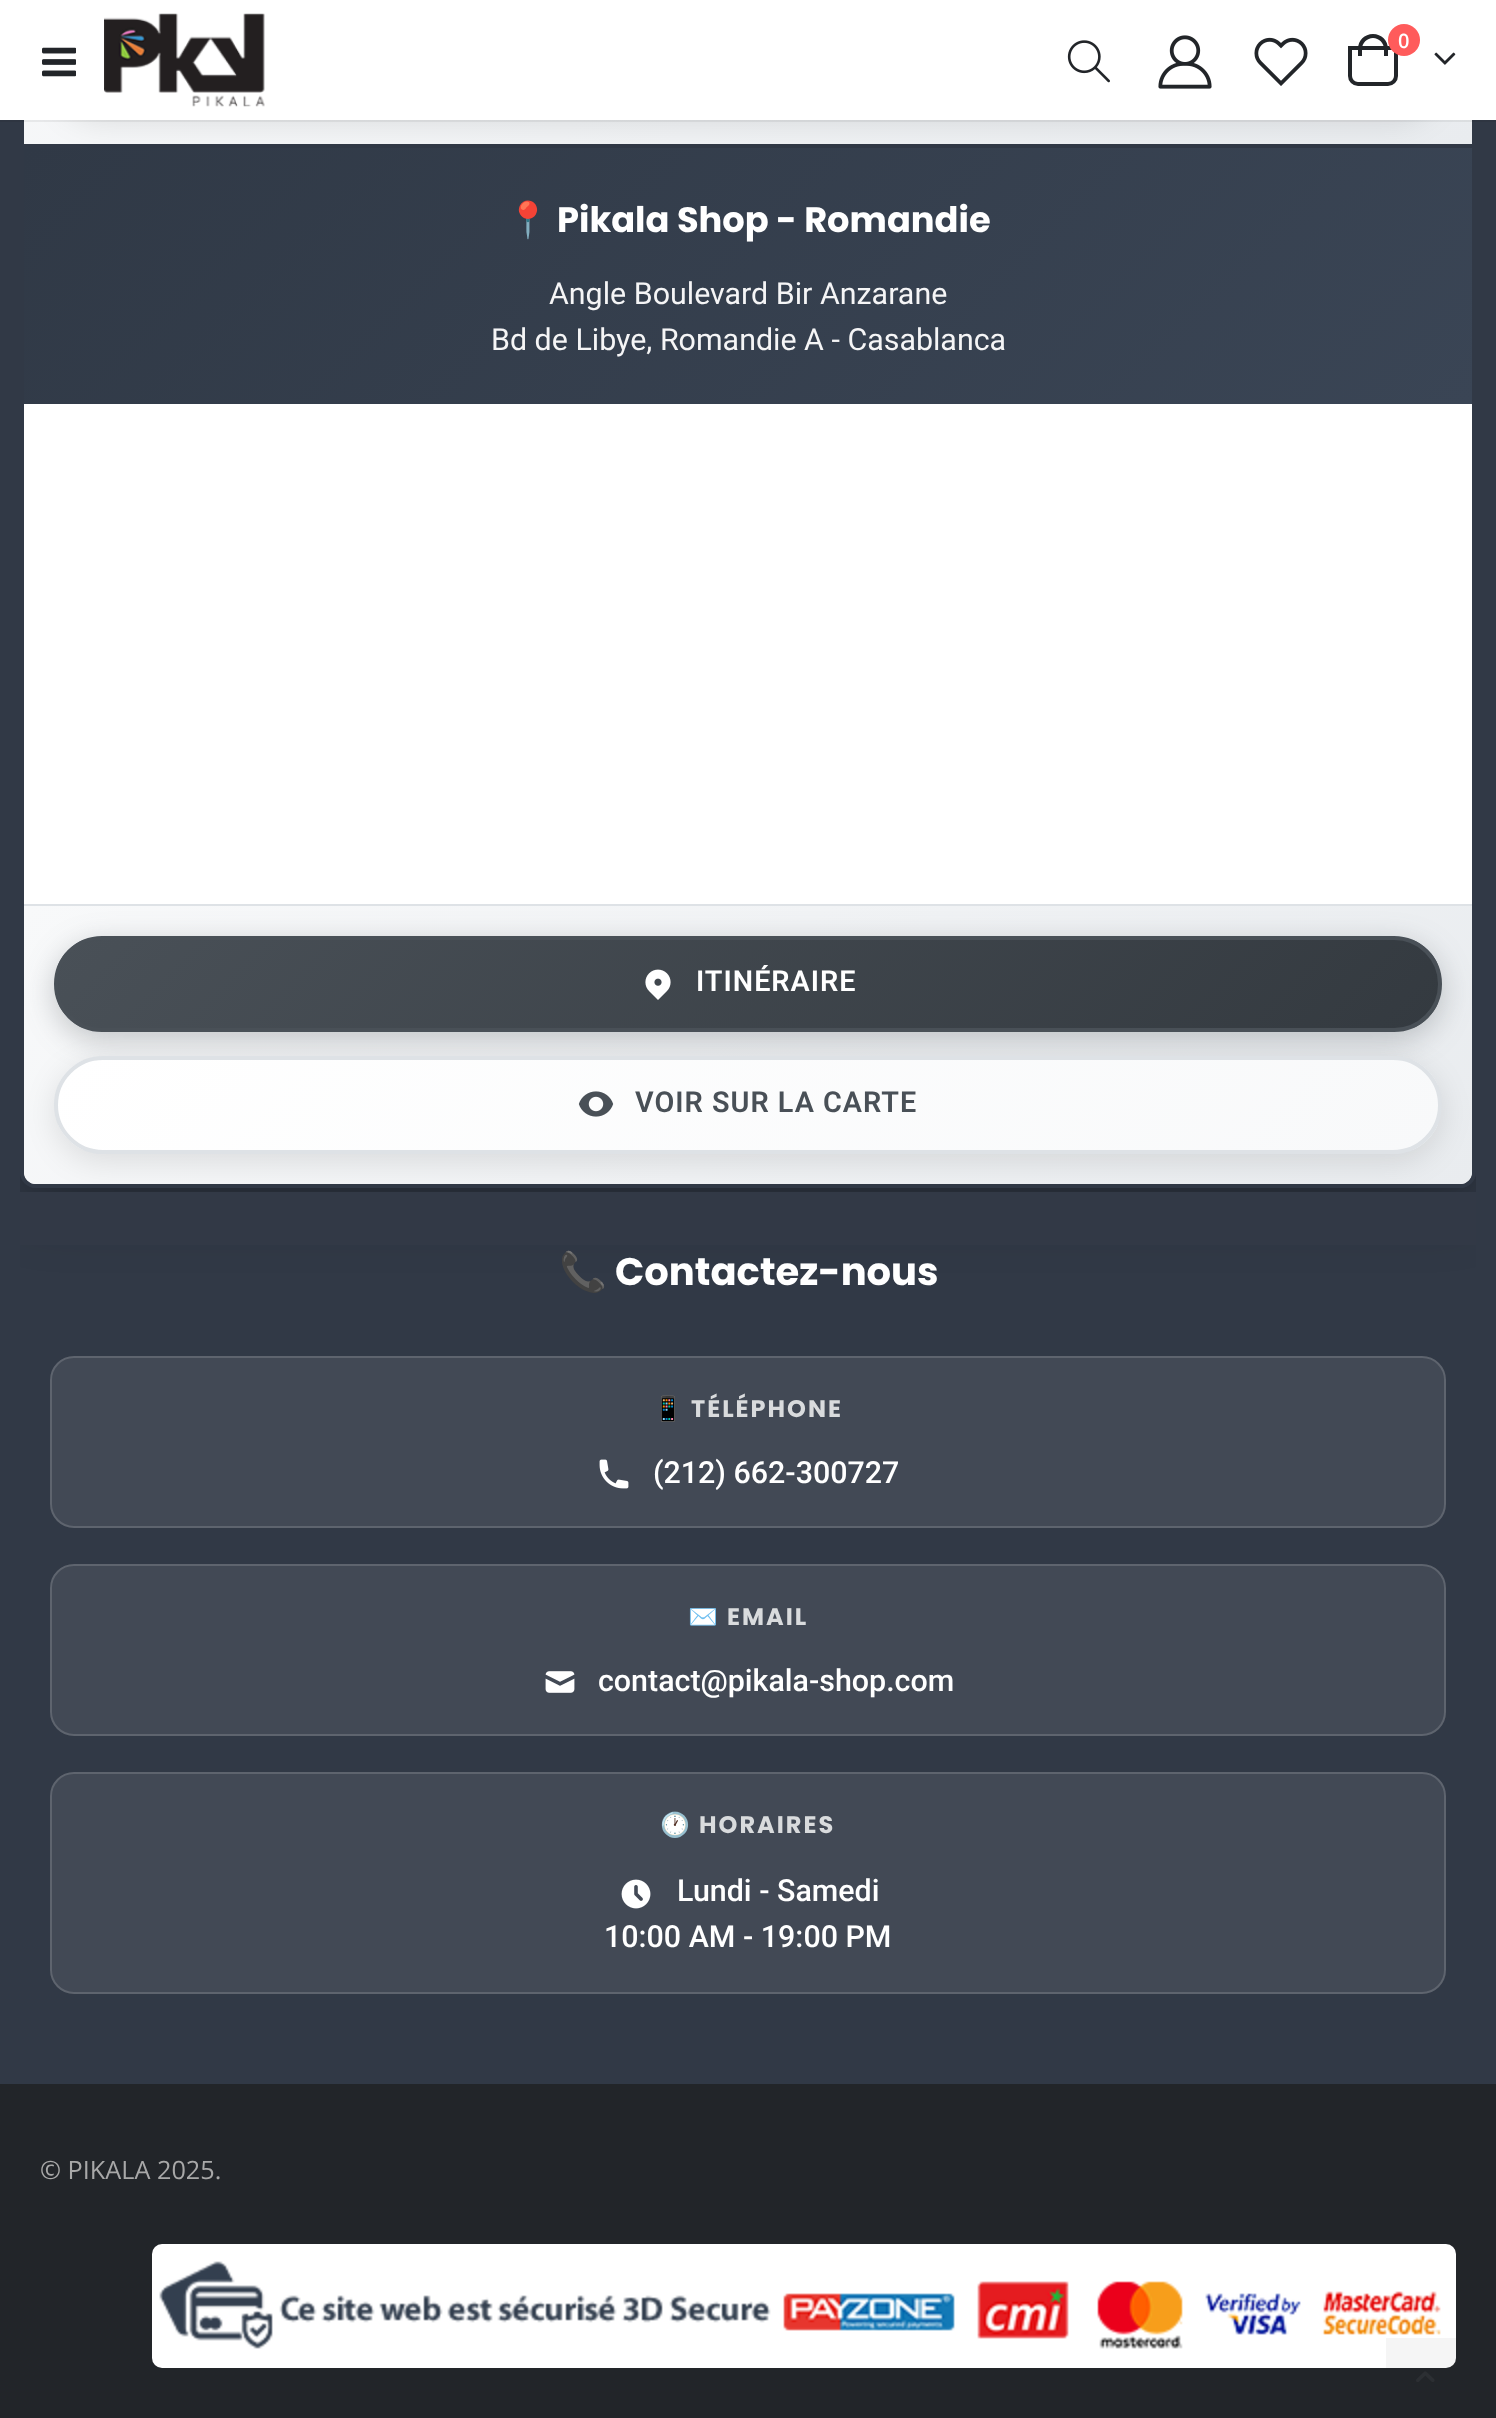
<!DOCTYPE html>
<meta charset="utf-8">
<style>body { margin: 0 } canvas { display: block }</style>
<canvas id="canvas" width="1496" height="2418"></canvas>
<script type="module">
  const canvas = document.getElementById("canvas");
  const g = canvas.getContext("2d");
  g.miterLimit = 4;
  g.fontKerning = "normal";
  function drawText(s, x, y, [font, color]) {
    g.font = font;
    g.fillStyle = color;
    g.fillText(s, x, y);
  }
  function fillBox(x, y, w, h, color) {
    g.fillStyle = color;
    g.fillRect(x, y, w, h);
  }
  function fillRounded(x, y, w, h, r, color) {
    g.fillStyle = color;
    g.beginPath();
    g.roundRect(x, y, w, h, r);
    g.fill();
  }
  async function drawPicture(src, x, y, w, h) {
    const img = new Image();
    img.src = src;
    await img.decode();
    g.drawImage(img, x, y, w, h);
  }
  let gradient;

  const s1 = ["600 20px Open Sans", "#FFFFFF"];
  const s2 = ["bold 35.25px Noto Color Emoji", "#FFFFFF"];
  const s3 = ["bold 35.25px Poppins", "#FFFFFF"];
  const s4 = ["30.4px Roboto", "#F5F5F6"];
  const s5 = ["600 28.75px Roboto", "#FFFFFF"];
  const s6 = ["600 28.75px Roboto", "#495057"];
  const s7 = ["bold 38.5px Noto Color Emoji", "#FFFFFF"];
  const s8 = ["bold 38.5px Poppins", "#FFFFFF"];
  const s9 = ["bold 24px Noto Color Emoji", "#D9DBDD"];
  const s10 = ["bold 24px Poppins", "#D9DBDD"];
  const s11 = ["500 30.4px Roboto", "#FFFFFF"];
  const s12 = ["25.25px Open Sans", "#A8A8A8"];

  fillBox(0, 0, 1496, 2418, "#222529");
  fillBox(0, 120, 1496, 1964, "#313946");
  g.save();
  g.beginPath();
  g.rect(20, 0, 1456, 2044);
  g.clip();
  g.beginPath();
  g.moveTo(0, 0);
  g.lineTo(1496, 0);
  g.lineTo(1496, 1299);
  g.lineTo(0, 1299);
  g.closePath();
  g.moveTo(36, -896);
  g.lineTo(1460, -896);
  g.bezierCurveTo(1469, -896, 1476, -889, 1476, -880);
  g.lineTo(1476, 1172);
  g.bezierCurveTo(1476, 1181, 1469, 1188, 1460, 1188);
  g.lineTo(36, 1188);
  g.bezierCurveTo(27, 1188, 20, 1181, 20, 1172);
  g.lineTo(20, -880);
  g.bezierCurveTo(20, -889, 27, -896, 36, -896);
  g.closePath();
  g.clip("evenodd");
  g.fillStyle = "rgba(0, 0, 0, 0.3)";
  g.filter = "blur(30px)";
  g.beginPath();
  g.roundRect(20, -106, 1456, 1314, 16);
  g.fill();
  g.filter = "none";
  g.restore();
  g.beginPath();
  g.roundRect(22, -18, 1452, 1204, 14);
  g.strokeStyle = "#313946";
  g.lineWidth = 4;
  g.stroke();
  gradient = g.createLinearGradient(316, -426, 1180, 437);
  gradient.addColorStop(0, "#F8F9FA");
  gradient.addColorStop(1, "#E9ECEF");
  g.fillStyle = gradient;
  g.fillRect(24, 120, 1448, 24);
  g.fillStyle = "rgba(0, 0, 0, 0.1)";
  g.filter = "blur(15px)";
  g.beginPath();
  g.roundRect(54, 24, 1388, 98, 49);
  g.fill();
  g.filter = "none";
  fillBox(0, 120, 1496, 2, "rgba(0, 0, 0, 0.06)");
  fillBox(0, 0, 1496, 120, "#FFFFFF");
  await drawPicture("pic1.png", 42, 47, 34, 30);
  await drawPicture("pic2.png", 104, 13, 161, 94);
  await drawPicture("pic3.png", 1067, 40, 43, 43);
  await drawPicture("pic4.png", 1158, 35, 54, 54);
  await drawPicture("pic5.png", 1254, 37, 54, 49);
  g.beginPath();
  g.roundRect(1350, 48, 46, 36, [0, 0, 8, 8]);
  g.strokeStyle = "#222529";
  g.stroke();
  g.fillStyle = "#222529";
  g.beginPath();
  g.moveTo(1373, 34);
  g.bezierCurveTo(1381.5, 34, 1388, 40.5, 1388, 49);
  g.lineTo(1388, 56);
  g.lineTo(1358, 56);
  g.lineTo(1358, 49);
  g.bezierCurveTo(1358, 40.5, 1364.5, 34, 1373, 34);
  g.closePath();
  g.moveTo(1373, 38);
  g.bezierCurveTo(1379, 38, 1384, 43, 1384, 49);
  g.lineTo(1384, 56);
  g.lineTo(1362, 56);
  g.lineTo(1362, 49);
  g.bezierCurveTo(1362, 43, 1367, 38, 1373, 38);
  g.closePath();
  g.fill("evenodd");
  g.fillStyle = "#FF5B5B";
  g.beginPath();
  g.arc(1404, 40, 16, 0, Math.PI * 2);
  g.fill();
  drawText("0", 1398, 48, s1);
  await drawPicture("pic6.png", 1434, 52, 22, 13);
  g.beginPath();
  g.roundRect(24, 148, 1448, 1036, [0, 0, 12, 12]);
  g.fill();
  gradient = g.createLinearGradient(322, -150, 1174, 702);
  gradient.addColorStop(0, "#303946");
  gradient.addColorStop(1, "#3A4555");
  g.fillStyle = gradient;
  g.fillRect(24, 148, 1448, 256);
  drawText("📍", 506, 232, s2);
  drawText("Pikala Shop - Romandie", 557, 232, s3);
  drawText("Angle Boulevard Bir Anzarane", 549, 304, s4);
  drawText("Bd de Libye, Romandie A - Casablanca", 491, 350, s4);
  gradient = g.createLinearGradient(316, 614, 1180, 1477);
  gradient.addColorStop(0, "#F8F9FA");
  gradient.addColorStop(1, "#E9ECEF");
  g.fillStyle = gradient;
  g.beginPath();
  g.roundRect(24, 906, 1448, 278, [0, 0, 12, 12]);
  g.fill();
  fillBox(24, 904, 1448, 2, "#DEE2E6");
  g.fillStyle = "rgba(73, 80, 87, 0.3)";
  g.filter = "blur(15px)";
  g.beginPath();
  g.roundRect(54, 944, 1388, 96, 48);
  g.fill();
  g.filter = "none";
  g.save();
  g.beginPath();
  g.roundRect(54, 936, 1388, 96, 48);
  g.clip();
  gradient = g.createLinearGradient(381, 617, 1115, 1351);
  gradient.addColorStop(0, "#495057");
  gradient.addColorStop(1, "#343A40");
  g.fillStyle = gradient;
  g.fillRect(58, 940, 1380, 88);
  g.restore();
  g.beginPath();
  g.roundRect(56, 938, 1384, 92, 46);
  g.strokeStyle = "#495057";
  g.stroke();
  await drawPicture("pic7.png", 645, 969, 26, 31);
  g.letterSpacing = "1px";
  drawText("ITINÉRAIRE", 696, 991, s5);
  g.fillStyle = "rgba(0, 0, 0, 0.1)";
  g.filter = "blur(15px)";
  g.beginPath();
  g.roundRect(54, 1064, 1388, 98, 49);
  g.fill();
  g.filter = "none";
  g.save();
  g.beginPath();
  g.roundRect(54, 1056, 1388, 98, 49);
  g.clip();
  gradient = g.createLinearGradient(381, 738, 1116, 1473);
  gradient.addColorStop(0, "#FFFFFF");
  gradient.addColorStop(1, "#F8F9FA");
  g.fillStyle = gradient;
  g.fillRect(58, 1060, 1380, 90);
  g.restore();
  g.beginPath();
  g.roundRect(56, 1058, 1384, 94, 47);
  g.strokeStyle = "#DEE2E6";
  g.stroke();
  await drawPicture("pic8.png", 578, 1091, 36, 26);
  drawText("VOIR SUR LA CARTE", 635, 1112, s6);
  fillBox(20, 1192, 1456, 53, "#323946");
  g.letterSpacing = "0px";
  drawText("📞", 559, 1285, s7);
  drawText("Contactez-nous", 615, 1285, s8);
  fillRounded(50, 1356, 1396, 172, 24, "#424955");
  g.beginPath();
  g.roundRect(51, 1357, 1394, 170, 23);
  g.strokeStyle = "rgba(255, 255, 255, 0.15)";
  g.lineWidth = 2;
  g.stroke();
  g.letterSpacing = "2px";
  drawText("📱", 653, 1417, s9);
  drawText("TÉLÉPHONE", 691, 1417, s10);
  await drawPicture("pic9.png", 599, 1459, 30, 30);
  g.letterSpacing = "0px";
  drawText("(212) 662-300727", 653, 1483, s11);
  fillRounded(50, 1564, 1396, 172, 24, "#424955");
  g.beginPath();
  g.roundRect(51, 1565, 1394, 170, 23);
  g.stroke();
  g.letterSpacing = "2px";
  drawText("✉️", 688, 1625, s9);
  drawText("EMAIL", 727, 1625, s10);
  await drawPicture("pic10.png", 545, 1671, 30, 22);
  g.letterSpacing = "0px";
  drawText("contact@pikala-shop.com", 598, 1691, s11);
  fillRounded(50, 1772, 1396, 222, 24, "#424955");
  g.beginPath();
  g.roundRect(51, 1773, 1394, 220, 23);
  g.stroke();
  g.letterSpacing = "2px";
  drawText("🕐", 660, 1833, s9);
  drawText("HORAIRES", 699, 1833, s10);
  await drawPicture("pic11.png", 621, 1879, 30, 30);
  g.letterSpacing = "0px";
  drawText("Lundi - Samedi", 677, 1901, s11);
  drawText("10:00 AM - 19:00 PM", 604, 1947, s11);
  drawText("© PIKALA 2025.", 40, 2179, s12);
  fillRounded(152, 2244, 1304, 124, 10, "#FFFFFF");
  await drawPicture("pic12.png", 159, 2261, 1282, 88);
  fillBox(1386, 2338, 70, 30, "rgba(64, 64, 64, 0.05)");
  await drawPicture("pic13.png", 1416, 2371, 19, 11);
</script>
